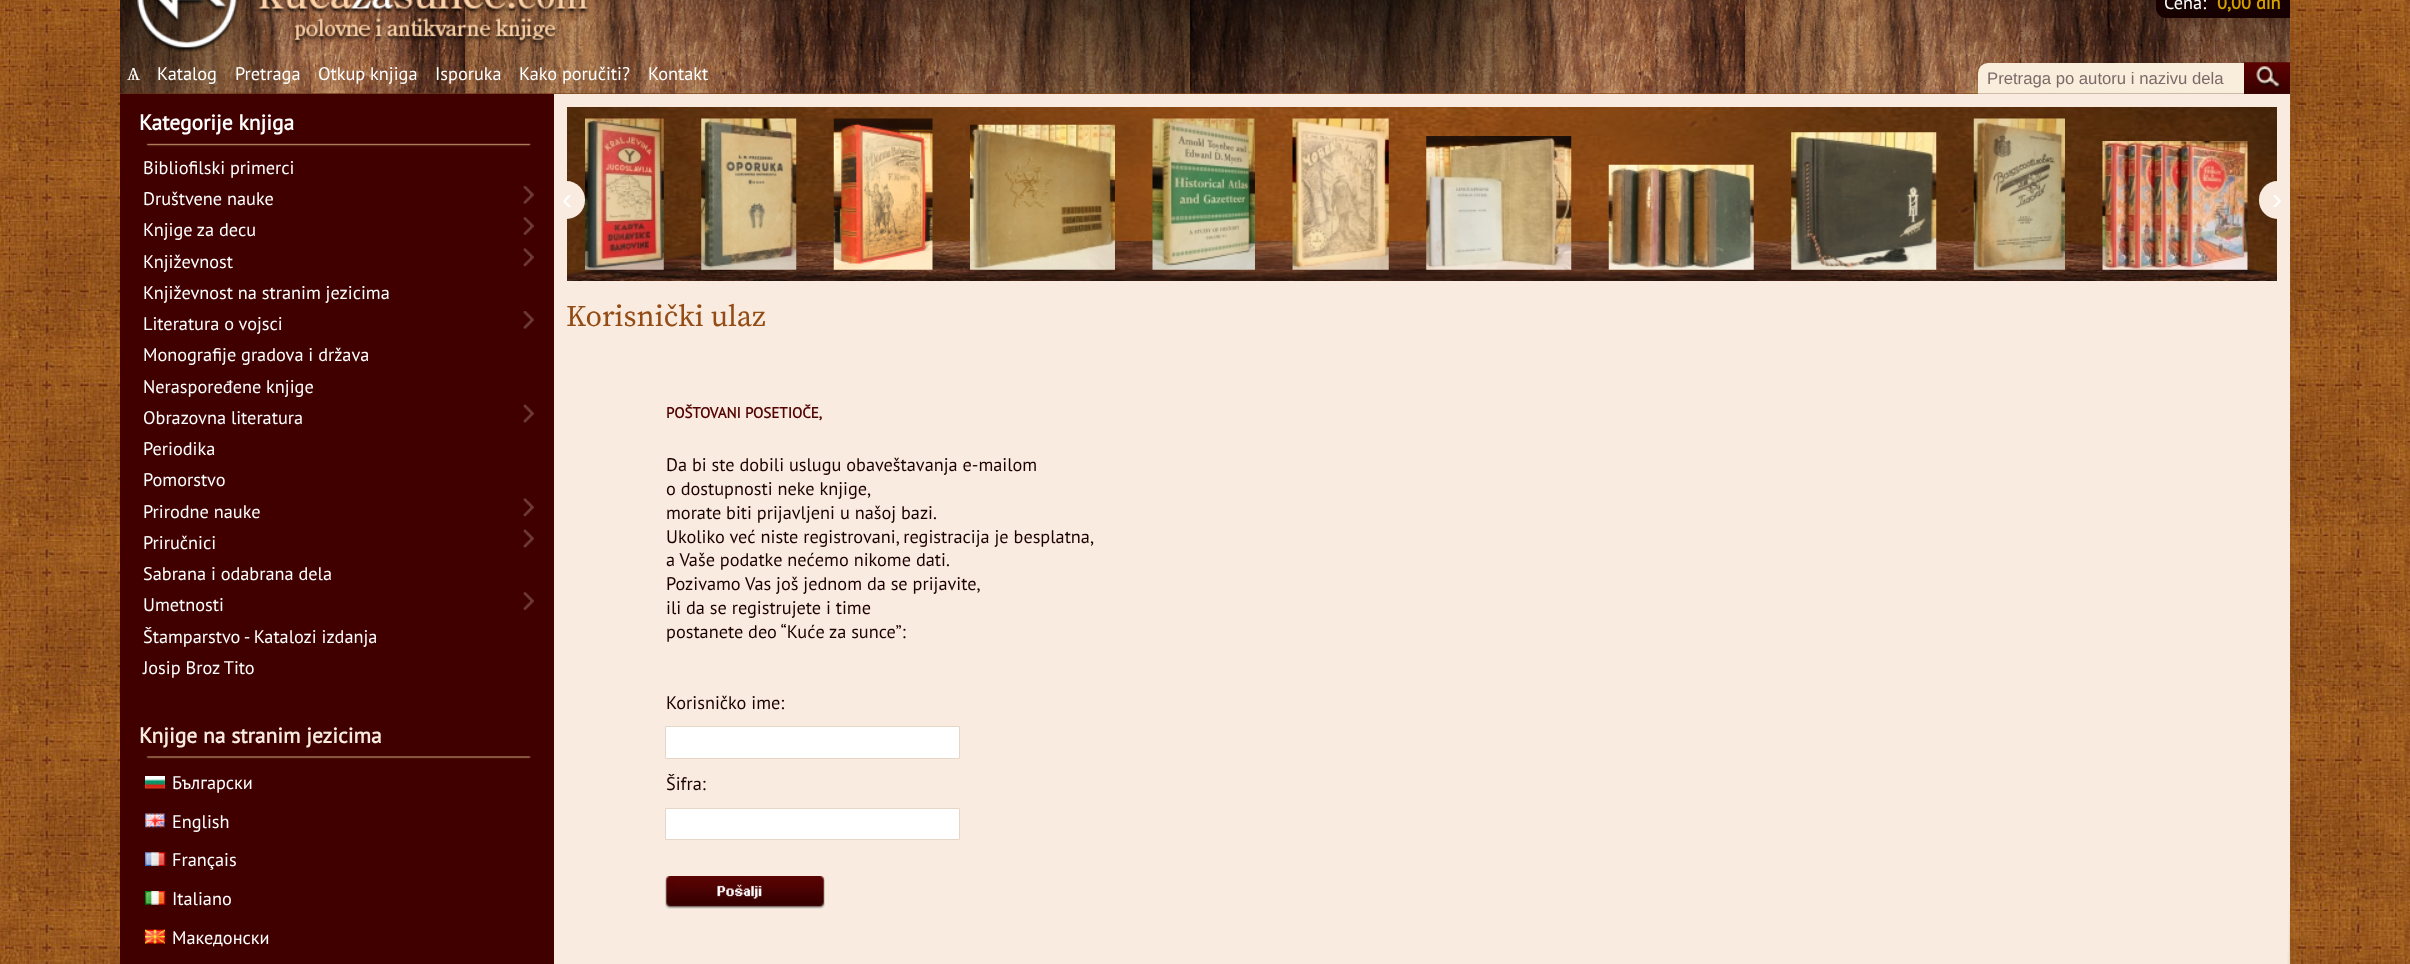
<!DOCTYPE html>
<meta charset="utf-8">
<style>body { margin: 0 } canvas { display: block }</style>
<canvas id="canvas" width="2410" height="964"></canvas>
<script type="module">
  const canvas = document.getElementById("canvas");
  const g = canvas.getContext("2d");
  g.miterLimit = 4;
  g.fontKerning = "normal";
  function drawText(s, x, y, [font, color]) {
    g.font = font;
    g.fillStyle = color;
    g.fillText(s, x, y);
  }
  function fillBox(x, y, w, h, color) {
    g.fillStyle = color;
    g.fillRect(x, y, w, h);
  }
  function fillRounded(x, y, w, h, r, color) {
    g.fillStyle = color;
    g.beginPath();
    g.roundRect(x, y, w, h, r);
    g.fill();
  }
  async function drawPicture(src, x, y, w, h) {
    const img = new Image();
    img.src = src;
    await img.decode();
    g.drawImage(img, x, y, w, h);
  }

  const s1 = ["18.3px PT Sans", "#FFFFFF"];
  const s2 = ["bold 18.3px PT Sans", "#D49F00"];
  const s3 = ["18.3px Liberation Serif", "#FFFFFF"];
  const s4 = ["16.7px Liberation Sans", "#7C6A6A"];
  const s5 = ["bold 21.5px PT Sans", "#FFFFFF"];
  const s6 = ["bold 21.5px PT Sans", "#F9EBDF"];
  const s7 = ["30px Liberation Sans", "#FFFFFF"];
  const s8 = ["30px Source Serif Pro", "#934C15"];
  const s9 = ["bold 15px PT Sans", "#520201"];
  const s10 = ["18.3px PT Sans", "#1D0000"];

  fillBox(0, 0, 2410, 964, "#FFFFFF");
  await drawPicture("pic1.png", 0, 0, 2410, 964);
  await drawPicture("pic2.png", 120, 0, 2170, 94);
  await drawPicture("pic3.png", 136, 0, 453, 52);
  g.fillStyle = "#160100";
  g.beginPath();
  g.moveTo(2156, -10);
  g.lineTo(2290, -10);
  g.lineTo(2290, 18);
  g.lineTo(2166, 18);
  g.bezierCurveTo(2160.5, 18, 2156, 13.5, 2156, 8);
  g.closePath();
  g.fill();
  drawText("Cena:", 2164, 9, s1);
  drawText("0,00 din", 2217, 9, s2);
  drawText("Ѧ", 127, 80, s3);
  drawText("Katalog", 157, 80, s1);
  drawText("Pretraga", 235, 80, s1);
  drawText("Otkup knjiga", 318, 80, s1);
  drawText("Isporuka", 435, 80, s1);
  drawText("Kako poručiti?", 519, 80, s1);
  drawText("Kontakt", 648, 80, s1);
  await drawPicture("pic4.png", 2243, 62, 47, 32);
  g.fillStyle = "#F9EDDB";
  g.beginPath();
  g.roundRect(1978, 63, 266, 31, [10, 0, 0, 0]);
  g.fill();
  drawText("Pretraga po autoru i nazivu dela", 1987, 84, s4);
  fillBox(120, 94, 434, 870, "#400000");
  await drawPicture("pic5.png", 120, 93, 434, 54);
  drawText("Kategorije knjiga", 139, 130, s5);
  drawText("Bibliofilski primerci", 143, 174, s1);
  drawText("Društvene nauke", 143, 205, s1);
  await drawPicture("pic6.png", 523, 186, 11, 18);
  drawText("Knjige za decu", 143, 236, s1);
  await drawPicture("pic7.png", 523, 217, 11, 18);
  drawText("Književnost", 143, 268, s1);
  await drawPicture("pic8.png", 523, 248, 11, 19);
  drawText("Književnost na stranim jezicima", 143, 299, s1);
  drawText("Literatura o vojsci", 143, 330, s1);
  await drawPicture("pic6.png", 523, 311, 11, 18);
  drawText("Monografije gradova i država", 143, 361, s1);
  drawText("Neraspoređene knjige", 143, 393, s1);
  drawText("Obrazovna literatura", 143, 424, s1);
  await drawPicture("pic9.png", 523, 404, 11, 19);
  drawText("Periodika", 143, 455, s1);
  drawText("Pomorstvo", 143, 486, s1);
  drawText("Prirodne nauke", 143, 518, s1);
  await drawPicture("pic10.png", 523, 498, 11, 19);
  drawText("Priručnici", 143, 549, s1);
  await drawPicture("pic9.png", 523, 529, 11, 19);
  drawText("Sabrana i odabrana dela", 143, 580, s1);
  drawText("Umetnosti", 143, 611, s1);
  await drawPicture("pic7.png", 523, 592, 11, 18);
  drawText("Štamparstvo - Katalozi izdanja", 143, 643, s1);
  drawText("Josip Broz Tito", 143, 674, s1);
  await drawPicture("pic11.png", 146, 756, 385, 3);
  drawText("Knjige na stranim jezicima", 139, 743, s6);
  await drawPicture("pic12.png", 145, 776, 20, 13);
  drawText("Български", 172, 789, s1);
  await drawPicture("pic13.png", 145, 813, 20, 15);
  drawText("English", 172, 828, s1);
  await drawPicture("pic14.png", 145, 852, 20, 14);
  drawText("Français", 172, 866, s1);
  await drawPicture("pic15.png", 145, 891, 20, 14);
  drawText("Italiano", 172, 905, s1);
  await drawPicture("pic16.png", 145, 929, 20, 15);
  drawText("Македонски", 172, 944, s1);
  await drawPicture("pic17.png", 554, 93, 1736, 188);
  g.beginPath();
  g.rect(560.5, 100.5, 1723, 212);
  g.strokeStyle = "#F9EBDF";
  g.lineWidth = 13;
  g.stroke();
  g.save();
  g.beginPath();
  g.rect(554, 94, 1736, 187);
  g.clip();
  fillRounded(548, 181, 37, 38, 18.5, "#F9EBDF");
  g.restore();
  drawText("‹", 562, 209, s7);
  await drawPicture("pic18.png", 585, 118, 79, 152);
  await drawPicture("pic19.png", 701, 118, 96, 152);
  await drawPicture("pic20.png", 833, 118, 100, 152);
  await drawPicture("pic21.png", 970, 124, 145, 146);
  await drawPicture("pic22.png", 1152, 118, 103, 152);
  await drawPicture("pic23.png", 1292, 118, 97, 152);
  await drawPicture("pic24.png", 1426, 136, 146, 134);
  await drawPicture("pic25.png", 1608, 164, 146, 106);
  await drawPicture("pic26.png", 1791, 132, 146, 138);
  await drawPicture("pic27.png", 1973, 118, 92, 152);
  await drawPicture("pic28.png", 2102, 141, 146, 129);
  g.save();
  g.beginPath();
  g.rect(554, 94, 1736, 187);
  g.clip();
  fillRounded(2259, 181, 37, 38, 18.5, "#F9EBDF");
  g.restore();
  drawText("›", 2272, 209, s7);
  fillBox(554, 281, 1736, 683, "#F9EBDF");
  await drawPicture("pic29.png", 2287, 904, 3, 60);
  drawText("Korisnički ulaz", 566, 326, s8);
  drawText("POŠTOVANI POSETIOČE,", 666, 418, s9);
  drawText("Da bi ste dobili uslugu obaveštavanja e-mailom", 666, 471, s10);
  drawText("o dostupnosti neke knjige,", 666, 495, s10);
  drawText("morate biti prijavljeni u našoj bazi.", 666, 519, s10);
  drawText("Ukoliko već niste registrovani, registracija je besplatna,", 666, 543, s10);
  drawText("a Vaše podatke nećemo nikome dati.", 666, 566, s10);
  drawText("Pozivamo Vas još jednom da se prijavite,", 666, 590, s10);
  drawText("ili da se registrujete i time", 666, 614, s10);
  drawText("postanete deo “Kuće za sunce”:", 666, 638, s10);
  drawText("Korisničko ime:", 666, 709, s10);
  g.fillStyle = "#FFFFFF";
  g.beginPath();
  g.rect(665.5, 726.5, 294, 32);
  g.fill();
  g.strokeStyle = "#E6D6C8";
  g.lineWidth = 1;
  g.stroke();
  drawText("Šifra:", 666, 790, s10);
  g.fillStyle = "#FFFFFF";
  g.beginPath();
  g.rect(665.5, 808.5, 294, 31);
  g.fill();
  g.stroke();
  fillBox(665, 908, 160, 1, "#EFEFEF");
  await drawPicture("pic30.png", 665, 876, 160, 33);
</script>
